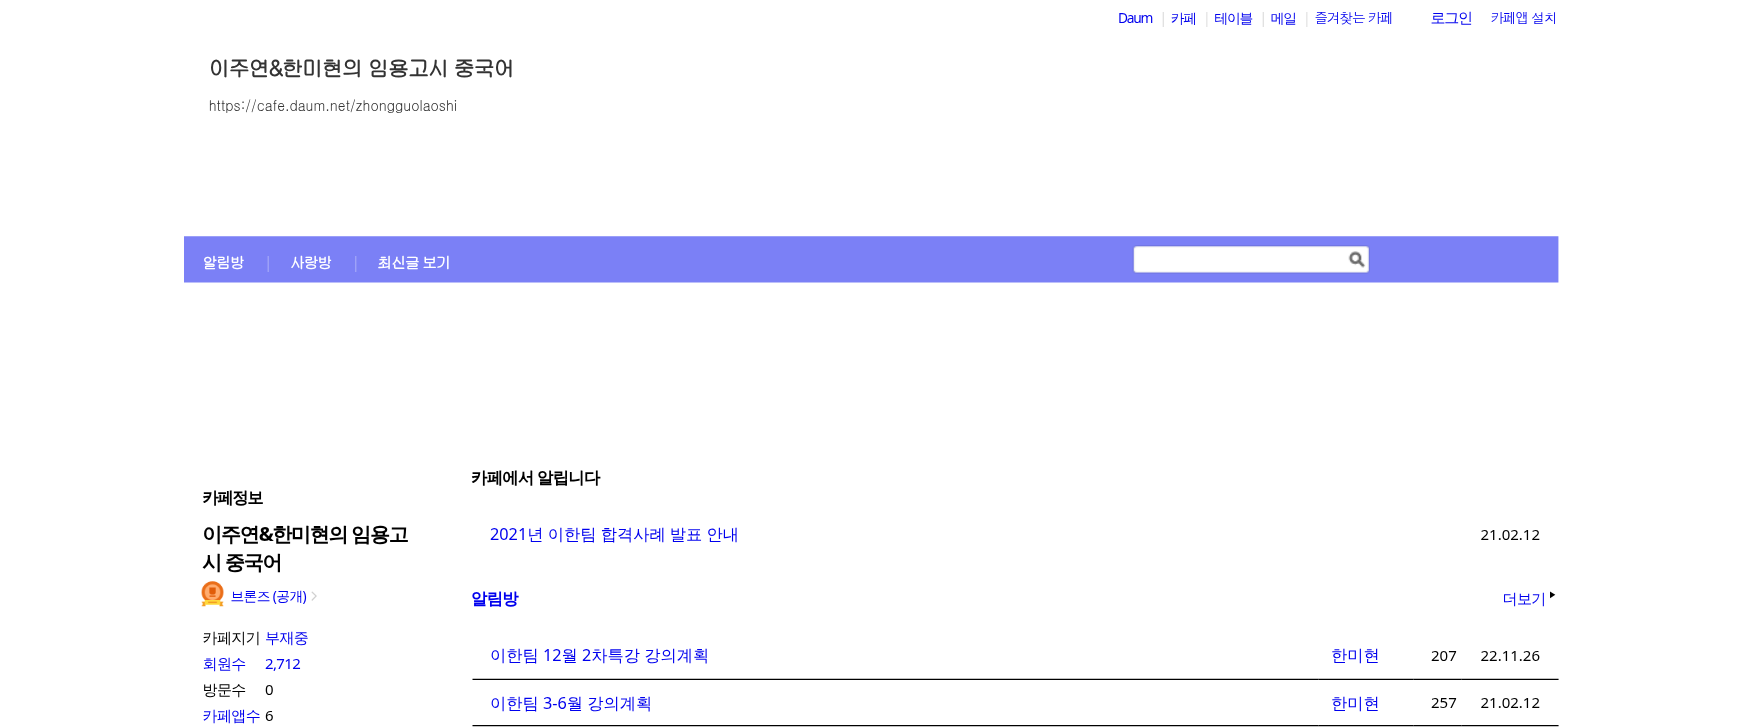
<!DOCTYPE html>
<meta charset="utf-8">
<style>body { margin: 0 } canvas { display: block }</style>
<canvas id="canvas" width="1742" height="728"></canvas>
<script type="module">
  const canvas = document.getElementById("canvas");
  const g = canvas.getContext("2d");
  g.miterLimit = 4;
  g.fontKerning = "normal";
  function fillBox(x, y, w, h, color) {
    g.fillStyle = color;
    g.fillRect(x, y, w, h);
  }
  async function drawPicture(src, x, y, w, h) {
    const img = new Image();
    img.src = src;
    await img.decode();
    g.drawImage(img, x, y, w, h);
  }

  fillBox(0, 0, 1742, 728, "#FFFFFF");
  await drawPicture("pic1.png", 184, 11, 1375, 716);
</script>
